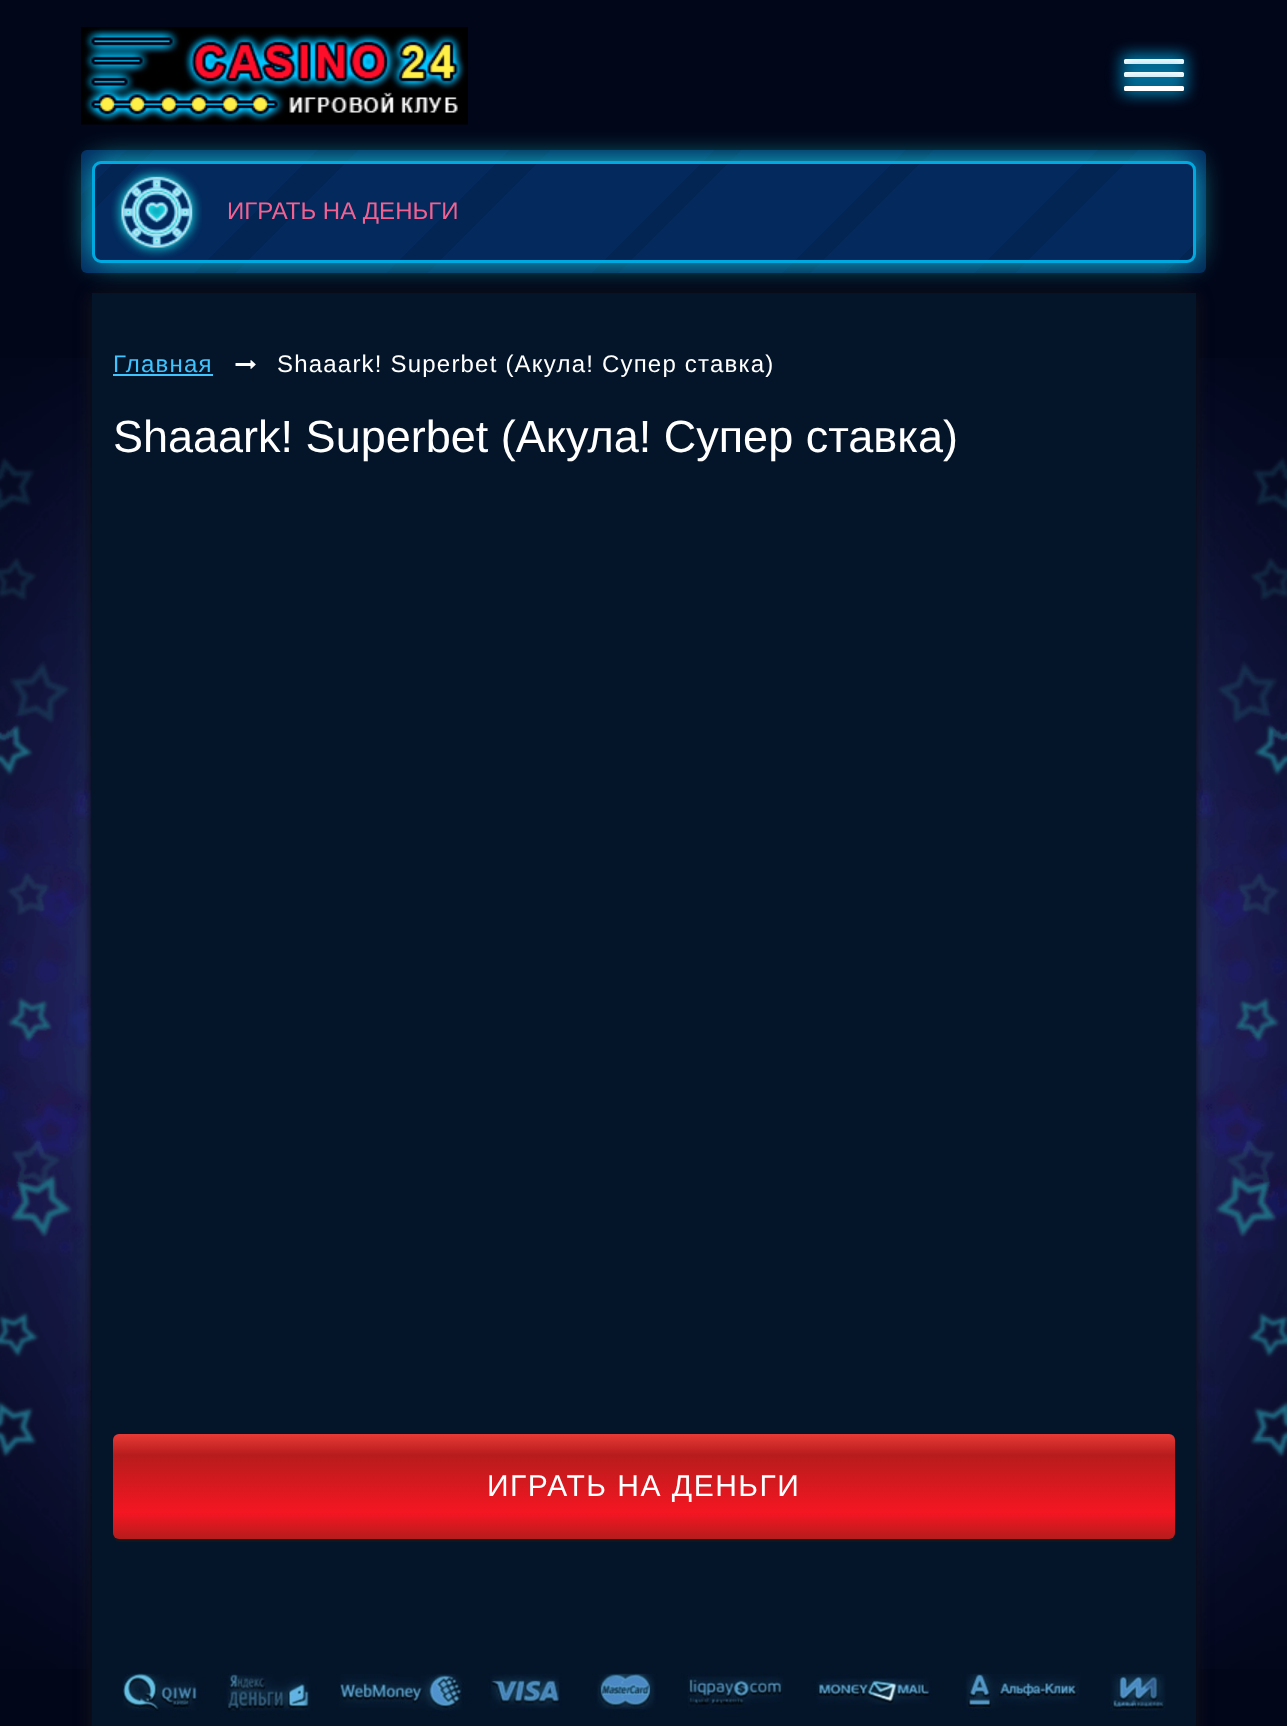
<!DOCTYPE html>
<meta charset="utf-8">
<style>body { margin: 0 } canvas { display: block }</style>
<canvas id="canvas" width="1287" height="1726"></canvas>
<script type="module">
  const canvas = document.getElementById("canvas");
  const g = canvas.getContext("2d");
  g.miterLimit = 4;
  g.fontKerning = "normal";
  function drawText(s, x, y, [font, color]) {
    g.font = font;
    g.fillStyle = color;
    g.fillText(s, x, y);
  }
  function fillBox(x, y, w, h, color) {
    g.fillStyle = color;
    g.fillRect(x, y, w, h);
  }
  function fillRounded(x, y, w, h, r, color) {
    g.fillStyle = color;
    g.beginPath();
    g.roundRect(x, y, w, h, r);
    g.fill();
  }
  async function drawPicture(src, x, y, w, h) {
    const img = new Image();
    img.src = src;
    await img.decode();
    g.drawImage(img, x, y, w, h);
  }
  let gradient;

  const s1 = ["24px Liberation Sans", "#F06292"];
  const s2 = ["24px Liberation Sans", "#40C4FF"];
  const s3 = ["24px Liberation Sans", "#FFFFFF"];
  const s4 = ["45px Liberation Sans", "#FFFFFF"];
  const s5 = ["30px Liberation Sans", "#FFFFFF"];

  fillBox(0, 0, 1287, 1726, "#020619");
  await drawPicture("pic1.png", 81, 27, 387, 98);
  g.fillStyle = "#00A9E0";
  g.filter = "blur(7.5px)";
  g.beginPath();
  g.roundRect(1121, 56, 66, 10, 5);
  g.fill();
  g.filter = "none";
  fillRounded(1124, 59, 60, 5, 1.5, "#FFFFFF");
  g.fillStyle = "#00A9E0";
  g.filter = "blur(7.5px)";
  g.beginPath();
  g.roundRect(1121, 69, 66, 11, 5);
  g.fill();
  g.filter = "none";
  fillRounded(1124, 72, 60, 5, 1.5, "#FFFFFF");
  g.fillStyle = "#00A9E0";
  g.filter = "blur(7.5px)";
  g.beginPath();
  g.roundRect(1121, 83, 66, 10, 5);
  g.fill();
  g.filter = "none";
  fillRounded(1124, 86, 60, 5, 1.5, "#FFFFFF");
  gradient = g.createLinearGradient(956, 524, 272, -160);
  gradient.addColorStop(0, "#032554");
  gradient.addColorStop(0.03, "#032554");
  gradient.addColorStop(0.03, "#03295D");
  gradient.addColorStop(0.14, "#03295D");
  gradient.addColorStop(0.14, "#032554");
  gradient.addColorStop(0.17, "#032554");
  gradient.addColorStop(0.17, "#03295D");
  gradient.addColorStop(0.29, "#03295D");
  gradient.addColorStop(0.29, "#032554");
  gradient.addColorStop(0.31, "#032554");
  gradient.addColorStop(0.31, "#03295D");
  gradient.addColorStop(0.43, "#03295D");
  gradient.addColorStop(0.43, "#032554");
  gradient.addColorStop(0.45, "#032554");
  gradient.addColorStop(0.45, "#03295D");
  gradient.addColorStop(0.57, "#03295D");
  gradient.addColorStop(0.57, "#032554");
  gradient.addColorStop(0.6, "#032554");
  gradient.addColorStop(0.6, "#03295D");
  gradient.addColorStop(0.71, "#03295D");
  gradient.addColorStop(0.71, "#032554");
  gradient.addColorStop(0.74, "#032554");
  gradient.addColorStop(0.74, "#03295D");
  gradient.addColorStop(0.86, "#03295D");
  gradient.addColorStop(0.86, "#032554");
  gradient.addColorStop(0.88, "#032554");
  gradient.addColorStop(0.88, "#03295D");
  gradient.addColorStop(1, "#03295D");
  g.fillStyle = gradient;
  g.beginPath();
  g.roundRect(81, 150, 1125, 123, 6);
  g.fill();
  g.save();
  g.beginPath();
  g.moveTo(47, 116);
  g.lineTo(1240, 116);
  g.lineTo(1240, 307);
  g.lineTo(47, 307);
  g.closePath();
  g.moveTo(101, 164);
  g.lineTo(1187, 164);
  g.bezierCurveTo(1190.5, 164, 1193, 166.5, 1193, 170);
  g.lineTo(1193, 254);
  g.bezierCurveTo(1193, 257.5, 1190.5, 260, 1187, 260);
  g.lineTo(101, 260);
  g.bezierCurveTo(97.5, 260, 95, 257.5, 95, 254);
  g.lineTo(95, 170);
  g.bezierCurveTo(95, 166.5, 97.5, 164, 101, 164);
  g.closePath();
  g.clip("evenodd");
  g.fillStyle = "rgba(24, 255, 255, 0.75)";
  g.filter = "blur(15px)";
  g.beginPath();
  g.roundRect(93, 162, 1101, 99, 8);
  g.fill();
  g.filter = "none";
  g.restore();
  g.beginPath();
  g.roundRect(93.5, 162.5, 1101, 99, 7.5);
  g.strokeStyle = "#00A9E0";
  g.lineWidth = 3;
  g.stroke();
  await drawPicture("pic2.png", 111, 167, 91, 91);
  drawText("ИГРАТЬ НА ДЕНЬГИ", 227, 219, s1);
  g.fillStyle = "rgba(24, 24, 24, 0.65)";
  g.filter = "blur(7.5px)";
  g.beginPath();
  g.roundRect(90, 293, 1107, 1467, 11);
  g.fill();
  g.filter = "none";
  fillBox(92, 293, 1104, 1433, "#04152A");
  await drawPicture("pic3.png", 0, 358, 92, 1311);
  g.letterSpacing = "1.2px";
  drawText("Главная", 113, 372, s2);
  fillBox(113, 374, 100, 2, "#40C4FF");
  await drawPicture("pic4.png", 235, 360, 21, 9);
  drawText("Shaaark! Superbet (Акула! Супер ставка)", 277, 372, s3);
  g.letterSpacing = "0px";
  drawText("Shaaark! Superbet (Акула! Супер ставка)", 113, 452, s4);
  g.fillStyle = "#11171E";
  g.beginPath();
  g.moveTo(113, 1535);
  g.lineTo(113, 1536);
  g.bezierCurveTo(113, 1539, 116, 1542, 119, 1542);
  g.lineTo(1169, 1542);
  g.bezierCurveTo(1172, 1542, 1175, 1539, 1175, 1536);
  g.lineTo(1175, 1443);
  g.lineTo(1174, 1441);
  g.lineTo(1174, 1533);
  g.bezierCurveTo(1174, 1536, 1172, 1539, 1168, 1539);
  g.lineTo(118, 1539);
  g.bezierCurveTo(116, 1539, 114, 1538, 113, 1535);
  g.closePath();
  g.fill();
  gradient = g.createLinearGradient(644, 1434, 644, 1539);
  gradient.addColorStop(0.01, "#E53935");
  gradient.addColorStop(0.2, "#B71C1C");
  gradient.addColorStop(0.75, "#F51622");
  gradient.addColorStop(0.99, "#B71C1C");
  g.fillStyle = gradient;
  g.beginPath();
  g.roundRect(113, 1434, 1062, 105, 6);
  g.fill();
  g.letterSpacing = "1.5px";
  drawText("ИГРАТЬ НА ДЕНЬГИ", 487, 1496, s5);
  await drawPicture("pic5.png", 122, 1673, 1044, 45);
  await drawPicture("pic6.png", 1196, 358, 91, 1311);
</script>
